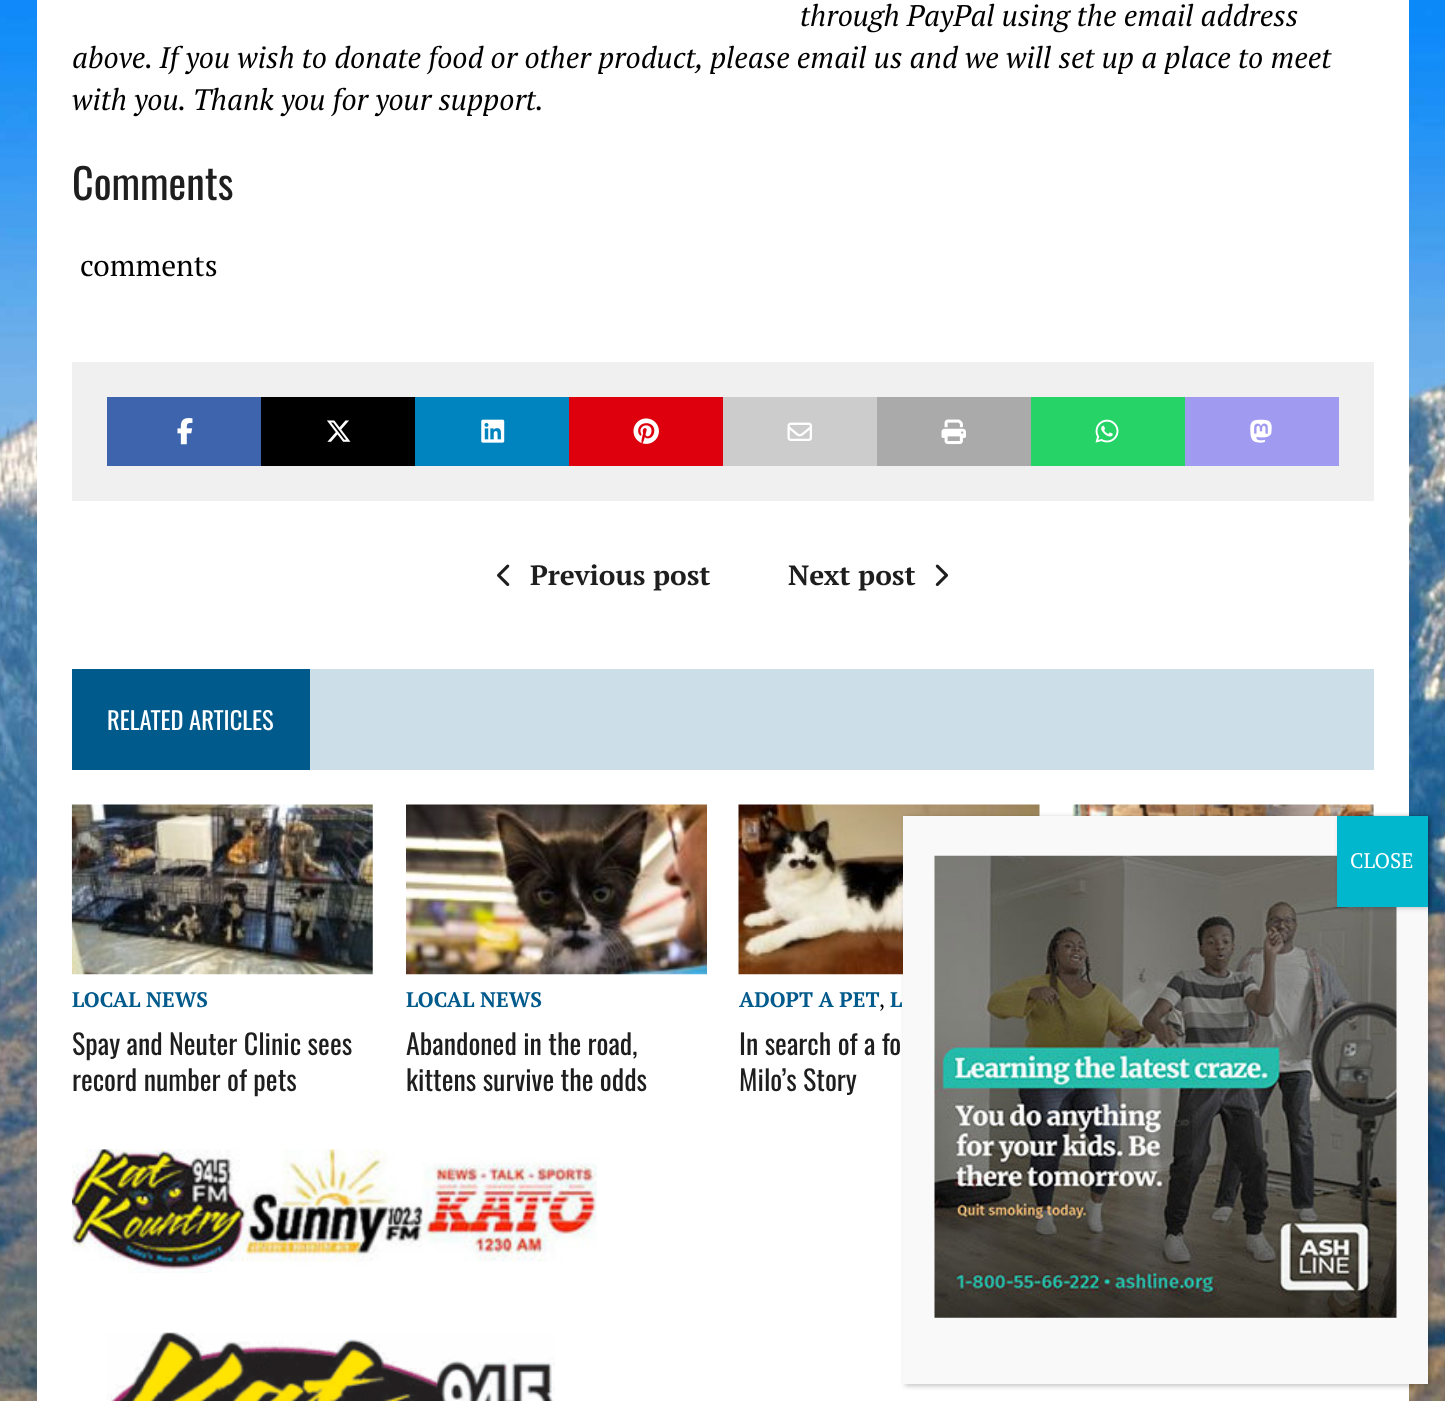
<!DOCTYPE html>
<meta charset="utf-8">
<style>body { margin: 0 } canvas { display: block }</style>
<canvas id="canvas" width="1445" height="1401"></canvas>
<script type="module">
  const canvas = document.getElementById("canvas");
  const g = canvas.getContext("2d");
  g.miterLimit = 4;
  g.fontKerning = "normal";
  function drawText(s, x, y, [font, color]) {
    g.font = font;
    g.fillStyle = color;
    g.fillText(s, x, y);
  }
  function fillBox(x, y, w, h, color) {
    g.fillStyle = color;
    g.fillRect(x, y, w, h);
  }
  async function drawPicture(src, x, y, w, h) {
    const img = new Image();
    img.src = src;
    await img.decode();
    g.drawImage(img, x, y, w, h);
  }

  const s1 = ["italic 29.75px PT Serif", "#000000"];
  const s2 = ["42px Oswald", "#1F1E1E"];
  const s3 = ["29.75px PT Serif", "#000000"];
  const s4 = ["bold 28px PT Serif", "#1F1E1E"];
  const s5 = ["24.5px Oswald", "#FFFFFF"];
  const s6 = ["bold 21px PT Serif", "#005A8C"];
  const s7 = ["28px Oswald", "#1F1E1E"];
  const s8 = ["21px PT Serif", "#000000"];
  const s9 = ["21px PT Serif", "#FFFFFF"];

  fillBox(0, 0, 1445, 1401, "#FFFFFF");
  await drawPicture("pic1.png", 0, 0, 1445, 1401);
  fillBox(37, 0, 1372, 1401, "#FFFFFF");
  drawText("through PayPal using the email address", 800, 26, s1);
  drawText("above. If you wish to donate food or other product, please email us and we will set up a place to meet", 72, 68, s1);
  drawText("with you. Thank you for your support.", 72, 110, s1);
  drawText("Comments", 72, 200, s2);
  drawText("comments", 80, 276, s3);
  fillBox(72, 362, 1302, 139, "#F0F0F0");
  fillBox(107, 397, 154, 69, "#3E64AD");
  await drawPicture("pic2.png", 177, 418, 16, 27);
  fillBox(261, 397, 154, 69, "#000000");
  await drawPicture("pic3.png", 327, 420, 24, 22);
  fillBox(415, 397, 154, 69, "#0084BF");
  await drawPicture("pic4.png", 481, 419, 24, 24);
  fillBox(569, 397, 154, 69, "#DE010D");
  await drawPicture("pic5.png", 633, 418, 26, 26);
  fillBox(723, 397, 154, 69, "#CCCCCC");
  await drawPicture("pic6.png", 787, 422, 25, 19);
  fillBox(877, 397, 154, 69, "#AAAAAA");
  await drawPicture("pic7.png", 941, 419, 25, 26);
  fillBox(1031, 397, 154, 69, "#25D366");
  await drawPicture("pic8.png", 1095, 419, 24, 24);
  fillBox(1185, 397, 154, 69, "#A09BF0");
  await drawPicture("pic9.png", 1250, 419, 22, 24);
  await drawPicture("pic10.png", 497, 564, 13, 22);
  drawText("Previous post", 530, 585, s4);
  drawText("Next post", 788, 585, s4);
  await drawPicture("pic11.png", 935, 564, 13, 22);
  fillBox(310, 669, 1064, 101, "#CCDEE8");
  fillBox(72, 669, 238, 101, "#005A8C");
  drawText("RELATED ARTICLES", 107, 730, s5);
  await drawPicture("pic12.png", 1072, 804, 302, 12);
  await drawPicture("pic13.png", 71, 804, 302, 171);
  drawText("LOCAL NEWS", 72, 1007, s6);
  drawText("Spay and Neuter Clinic sees", 72, 1055, s7);
  drawText("record number of pets", 72, 1091, s7);
  await drawPicture("pic14.png", 406, 804, 301, 171);
  drawText("LOCAL NEWS", 406, 1007, s6);
  drawText("Abandoned in the road,", 406, 1055, s7);
  drawText("kittens survive the odds", 406, 1091, s7);
  await drawPicture("pic15.png", 738, 804, 302, 171);
  drawText("ADOPT A PET", 739, 1007, s6);
  drawText(",", 879, 1007, s8);
  drawText("L", 890, 1007, s6);
  drawText("In search of a fo", 739, 1055, s7);
  drawText("Milo’s Story", 739, 1091, s7);
  await drawPicture("pic16.png", 71, 1149, 526, 124);
  await drawPicture("pic17.png", 107, 1332, 448, 69);
  g.fillStyle = "rgba(2, 2, 2, 0.23)";
  g.filter = "blur(2.5px)";
  g.beginPath();
  g.rect(905, 817, 525, 569);
  g.fill();
  g.filter = "none";
  fillBox(903, 816, 525, 568, "#F9F9F9");
  await drawPicture("pic18.png", 934, 855, 463, 463);
  g.fillStyle = "rgba(2, 2, 2, 0.23)";
  g.filter = "blur(2.5px)";
  g.beginPath();
  g.rect(1339, 817, 91, 91);
  g.fill();
  g.filter = "none";
  fillBox(1337, 816, 91, 91, "#00B7CD");
  drawText("CLOSE", 1350, 868, s9);
</script>
